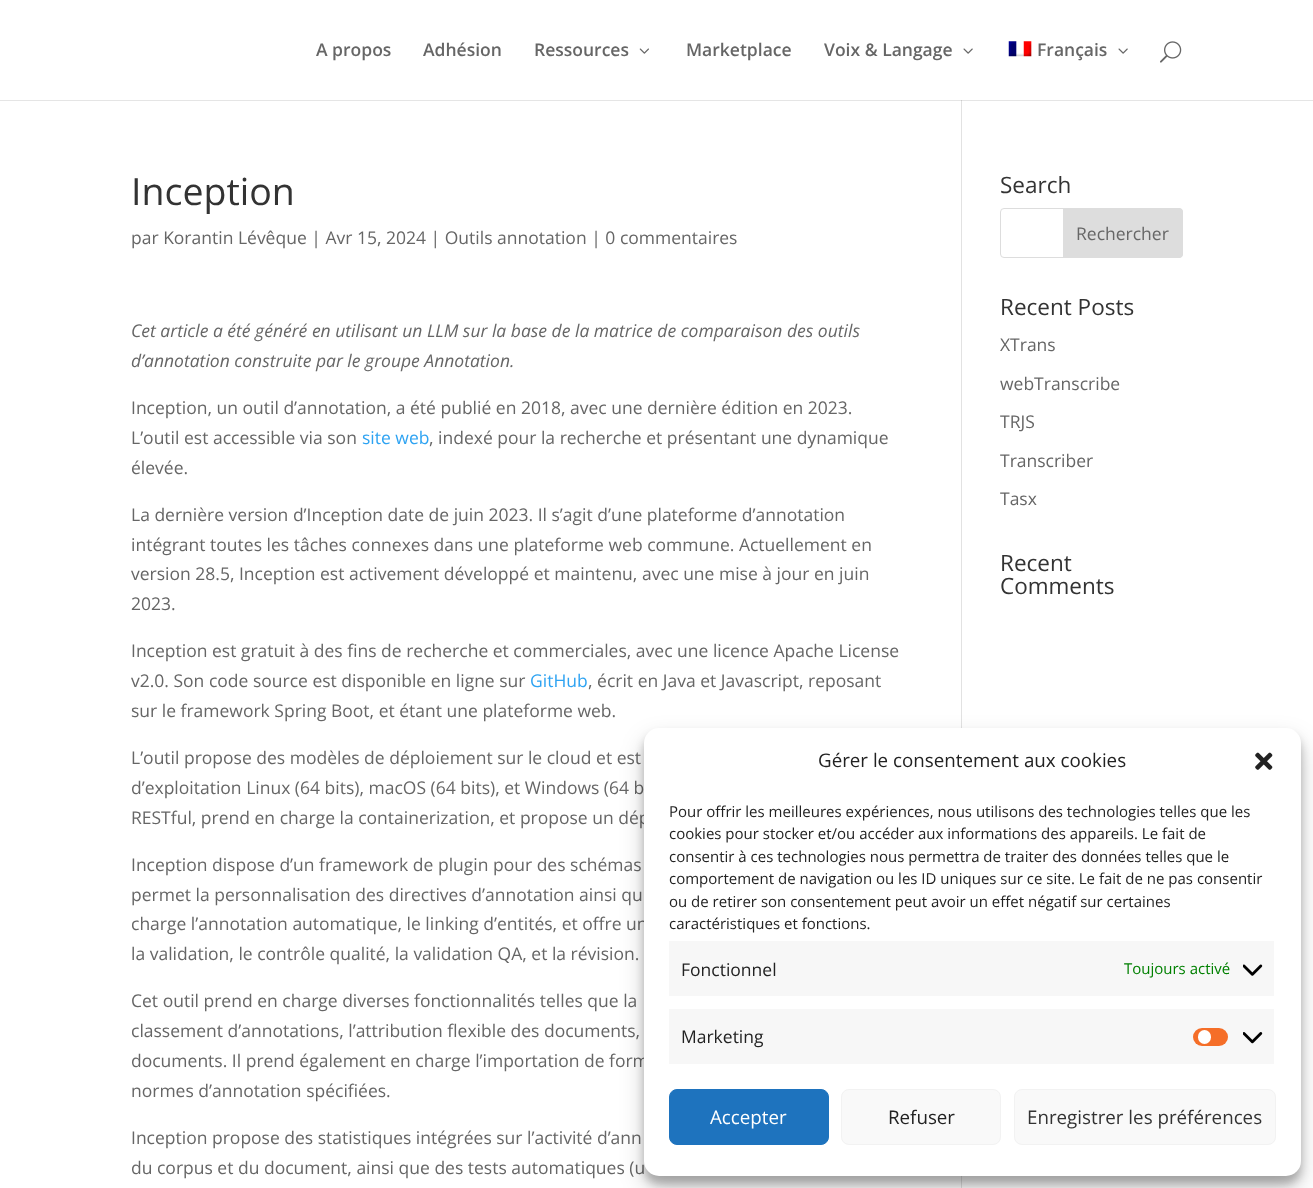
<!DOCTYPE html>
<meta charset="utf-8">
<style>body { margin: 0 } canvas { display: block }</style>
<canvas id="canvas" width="1313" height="1188"></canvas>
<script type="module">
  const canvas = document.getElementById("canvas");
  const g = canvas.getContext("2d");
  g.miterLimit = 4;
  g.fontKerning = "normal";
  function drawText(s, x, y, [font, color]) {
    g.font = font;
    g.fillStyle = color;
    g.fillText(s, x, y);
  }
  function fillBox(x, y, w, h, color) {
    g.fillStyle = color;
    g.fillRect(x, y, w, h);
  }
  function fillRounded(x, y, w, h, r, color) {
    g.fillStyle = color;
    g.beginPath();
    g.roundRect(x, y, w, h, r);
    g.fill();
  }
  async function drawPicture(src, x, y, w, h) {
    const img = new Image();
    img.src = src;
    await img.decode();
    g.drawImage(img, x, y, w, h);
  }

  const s1 = ["600 17.5px Open Sans", "#666666"];
  const s2 = ["37.5px Open Sans", "#333333"];
  const s3 = ["17.5px Open Sans", "#666666"];
  const s4 = ["italic 17.5px Open Sans", "#666666"];
  const s5 = ["17.5px Open Sans", "#2EA3F2"];
  const s6 = ["22.5px Open Sans", "#333333"];
  const s7 = ["18.75px Open Sans", "#222222"];
  const s8 = ["15px Open Sans", "#222222"];
  const s9 = ["17.5px Open Sans", "#222222"];
  const s10 = ["15px Open Sans", "#008000"];
  const s11 = ["18.75px Open Sans", "#FFFFFF"];
  const s12 = ["18.75px Open Sans", "#333333"];

  fillBox(0, 0, 1313, 1188, "#FFFFFF");
  fillBox(961, 100, 1, 1088, "#E2E2E2");
  g.fillStyle = "rgba(0, 0, 0, 0.1)";
  g.beginPath();
  g.moveTo(0, 100);
  g.lineTo(0, 101);
  g.lineTo(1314, 101);
  g.lineTo(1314, 1);
  g.lineTo(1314, 100);
  g.closePath();
  g.fill();
  drawText("A propos", 316, 56, s1);
  drawText("Adhésion", 423, 56, s1);
  drawText("Ressources", 534, 56, s1);
  await drawPicture("pic1.png", 639, 48, 10, 6);
  drawText("Marketplace", 686, 56, s1);
  drawText("Voix & Langage", 824, 56, s1);
  await drawPicture("pic2.png", 963, 48, 10, 6);
  await drawPicture("pic3.png", 1008, 41, 24, 16);
  drawText("Français", 1037, 56, s1);
  await drawPicture("pic2.png", 1118, 48, 10, 6);
  await drawPicture("pic4.png", 1160, 41, 22, 22);
  drawText("Inception", 131, 205, s2);
  drawText("par Korantin Lévêque | Avr 15, 2024 | Outils annotation | 0 commentaires", 131, 244, s3);
  drawText("Cet article a été généré en utilisant un LLM sur la base de la matrice de comparaison des outils", 131, 337, s4);
  drawText("d’annotation construite par le groupe Annotation.", 131, 367, s4);
  drawText("Inception, un outil d’annotation, a été publié en 2018, avec une dernière édition en 2023.", 131, 414, s3);
  drawText("L’outil est accessible via son", 131, 444, s3);
  drawText("site web", 362, 444, s5);
  drawText(", indexé pour la recherche et présentant une dynamique", 429, 444, s3);
  drawText("élevée.", 131, 474, s3);
  drawText("La dernière version d’Inception date de juin 2023. Il s’agit d’une plateforme d’annotation", 131, 521, s3);
  drawText("intégrant toutes les tâches connexes dans une plateforme web commune. Actuellement en", 131, 551, s3);
  drawText("version 28.5, Inception est activement développé et maintenu, avec une mise à jour en juin", 131, 580, s3);
  drawText("2023.", 131, 610, s3);
  drawText("Inception est gratuit à des fins de recherche et commerciales, avec une licence Apache License", 131, 657, s3);
  drawText("v2.0. Son code source est disponible en ligne sur", 131, 687, s3);
  drawText("GitHub", 530, 687, s5);
  drawText(", écrit en Java et Javascript, reposant", 588, 687, s3);
  drawText("sur le framework Spring Boot, et étant une plateforme web.", 131, 717, s3);
  drawText("L’outil propose des modèles de déploiement sur le cloud et est", 131, 764, s3);
  drawText("d’exploitation Linux (64 bits), macOS (64 bits), et Windows (64 b", 131, 794, s3);
  drawText("RESTful, prend en charge la containerization, et propose un dép", 131, 824, s3);
  drawText("Inception dispose d’un framework de plugin pour des schémas", 131, 871, s3);
  drawText("permet la personnalisation des directives d’annotation ainsi qu", 131, 901, s3);
  drawText("charge l’annotation automatique, le linking d’entités, et offre un", 131, 930, s3);
  drawText("la validation, le contrôle qualité, la validation QA, et la révision.", 131, 960, s3);
  drawText("Cet outil prend en charge diverses fonctionnalités telles que la", 131, 1007, s3);
  drawText("classement d’annotations, l’attribution flexible des documents,", 131, 1037, s3);
  drawText("documents. Il prend également en charge l’importation de form", 131, 1067, s3);
  drawText("normes d’annotation spécifiées.", 131, 1097, s3);
  drawText("Inception propose des statistiques intégrées sur l’activité d’ann", 131, 1144, s3);
  drawText("du corpus et du document, ainsi que des tests automatiques (u", 131, 1174, s3);
  drawText("Search", 1000, 193, s6);
  g.beginPath();
  g.roundRect(1000.5, 208.5, 182, 49, 3.5);
  g.strokeStyle = "#DDDDDD";
  g.stroke();
  g.fillStyle = "#DDDDDD";
  g.beginPath();
  g.roundRect(1063.5, 208.5, 119, 49, [0, 3.5, 3.5, 0]);
  g.fill();
  g.stroke();
  drawText("Rechercher", 1076, 240, s3);
  drawText("Recent Posts", 1000, 315, s6);
  drawText("XTrans", 1000, 351, s3);
  drawText("webTranscribe", 1000, 390, s3);
  drawText("TRJS", 1000, 428, s3);
  drawText("Transcriber", 1000, 467, s3);
  drawText("Tasx", 1000, 505, s3);
  drawText("Recent", 1000, 571, s6);
  drawText("Comments", 1000, 594, s6);
  g.fillStyle = "rgba(0, 0, 0, 0.23)";
  g.filter = "blur(4px)";
  g.beginPath();
  g.roundRect(644, 735, 657, 449, 15);
  g.fill();
  g.filter = "none";
  g.fillStyle = "rgba(0, 0, 0, 0.19)";
  g.filter = "blur(12.5px)";
  g.beginPath();
  g.roundRect(644, 740, 657, 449, 15);
  g.fill();
  g.filter = "none";
  fillRounded(644, 728, 657, 448, 15, "#FFFFFF");
  drawText("Gérer le consentement aux cookies", 818, 767, s7);
  await drawPicture("pic5.png", 1255, 752, 18, 18);
  drawText("Pour offrir les meilleures expériences, nous utilisons des technologies telles que les", 669, 817, s8);
  drawText("cookies pour stocker et/ou accéder aux informations des appareils. Le fait de", 669, 839, s8);
  drawText("consentir à ces technologies nous permettra de traiter des données telles que le", 669, 862, s8);
  drawText("comportement de navigation ou les ID uniques sur ce site. Le fait de ne pas consentir", 669, 884, s8);
  drawText("ou de retirer son consentement peut avoir un effet négatif sur certaines", 669, 907, s8);
  drawText("caractéristiques et fonctions.", 669, 929, s8);
  fillBox(669, 941, 605, 55, "#F7F7F7");
  drawText("Fonctionnel", 681, 976, s9);
  drawText("Toujours activé", 1124, 974, s10);
  await drawPicture("pic6.png", 1243, 964, 20, 12);
  fillBox(669, 1009, 605, 55, "#F7F7F7");
  drawText("Marketing", 681, 1043, s9);
  fillRounded(1193, 1028, 35, 18, 9, "#F56E28");
  fillRounded(1198, 1030, 13, 14, 6.5, "#FFFFFF");
  await drawPicture("pic7.png", 1243, 1032, 20, 12);
  g.fillStyle = "#1E73BE";
  g.beginPath();
  g.roundRect(669.5, 1089.5, 159, 55, 7.5);
  g.fill();
  g.strokeStyle = "#1E73BE";
  g.stroke();
  drawText("Accepter", 710, 1124, s11);
  g.fillStyle = "#F9F9F9";
  g.beginPath();
  g.roundRect(841.5, 1089.5, 159, 55, 7.5);
  g.fill();
  g.strokeStyle = "#F2F2F2";
  g.stroke();
  drawText("Refuser", 888, 1124, s7);
  g.fillStyle = "#F9F9F9";
  g.beginPath();
  g.roundRect(1014.5, 1089.5, 261, 55, 7.5);
  g.fill();
  g.stroke();
  drawText("Enregistrer les préférences", 1027, 1124, s12);
</script>
